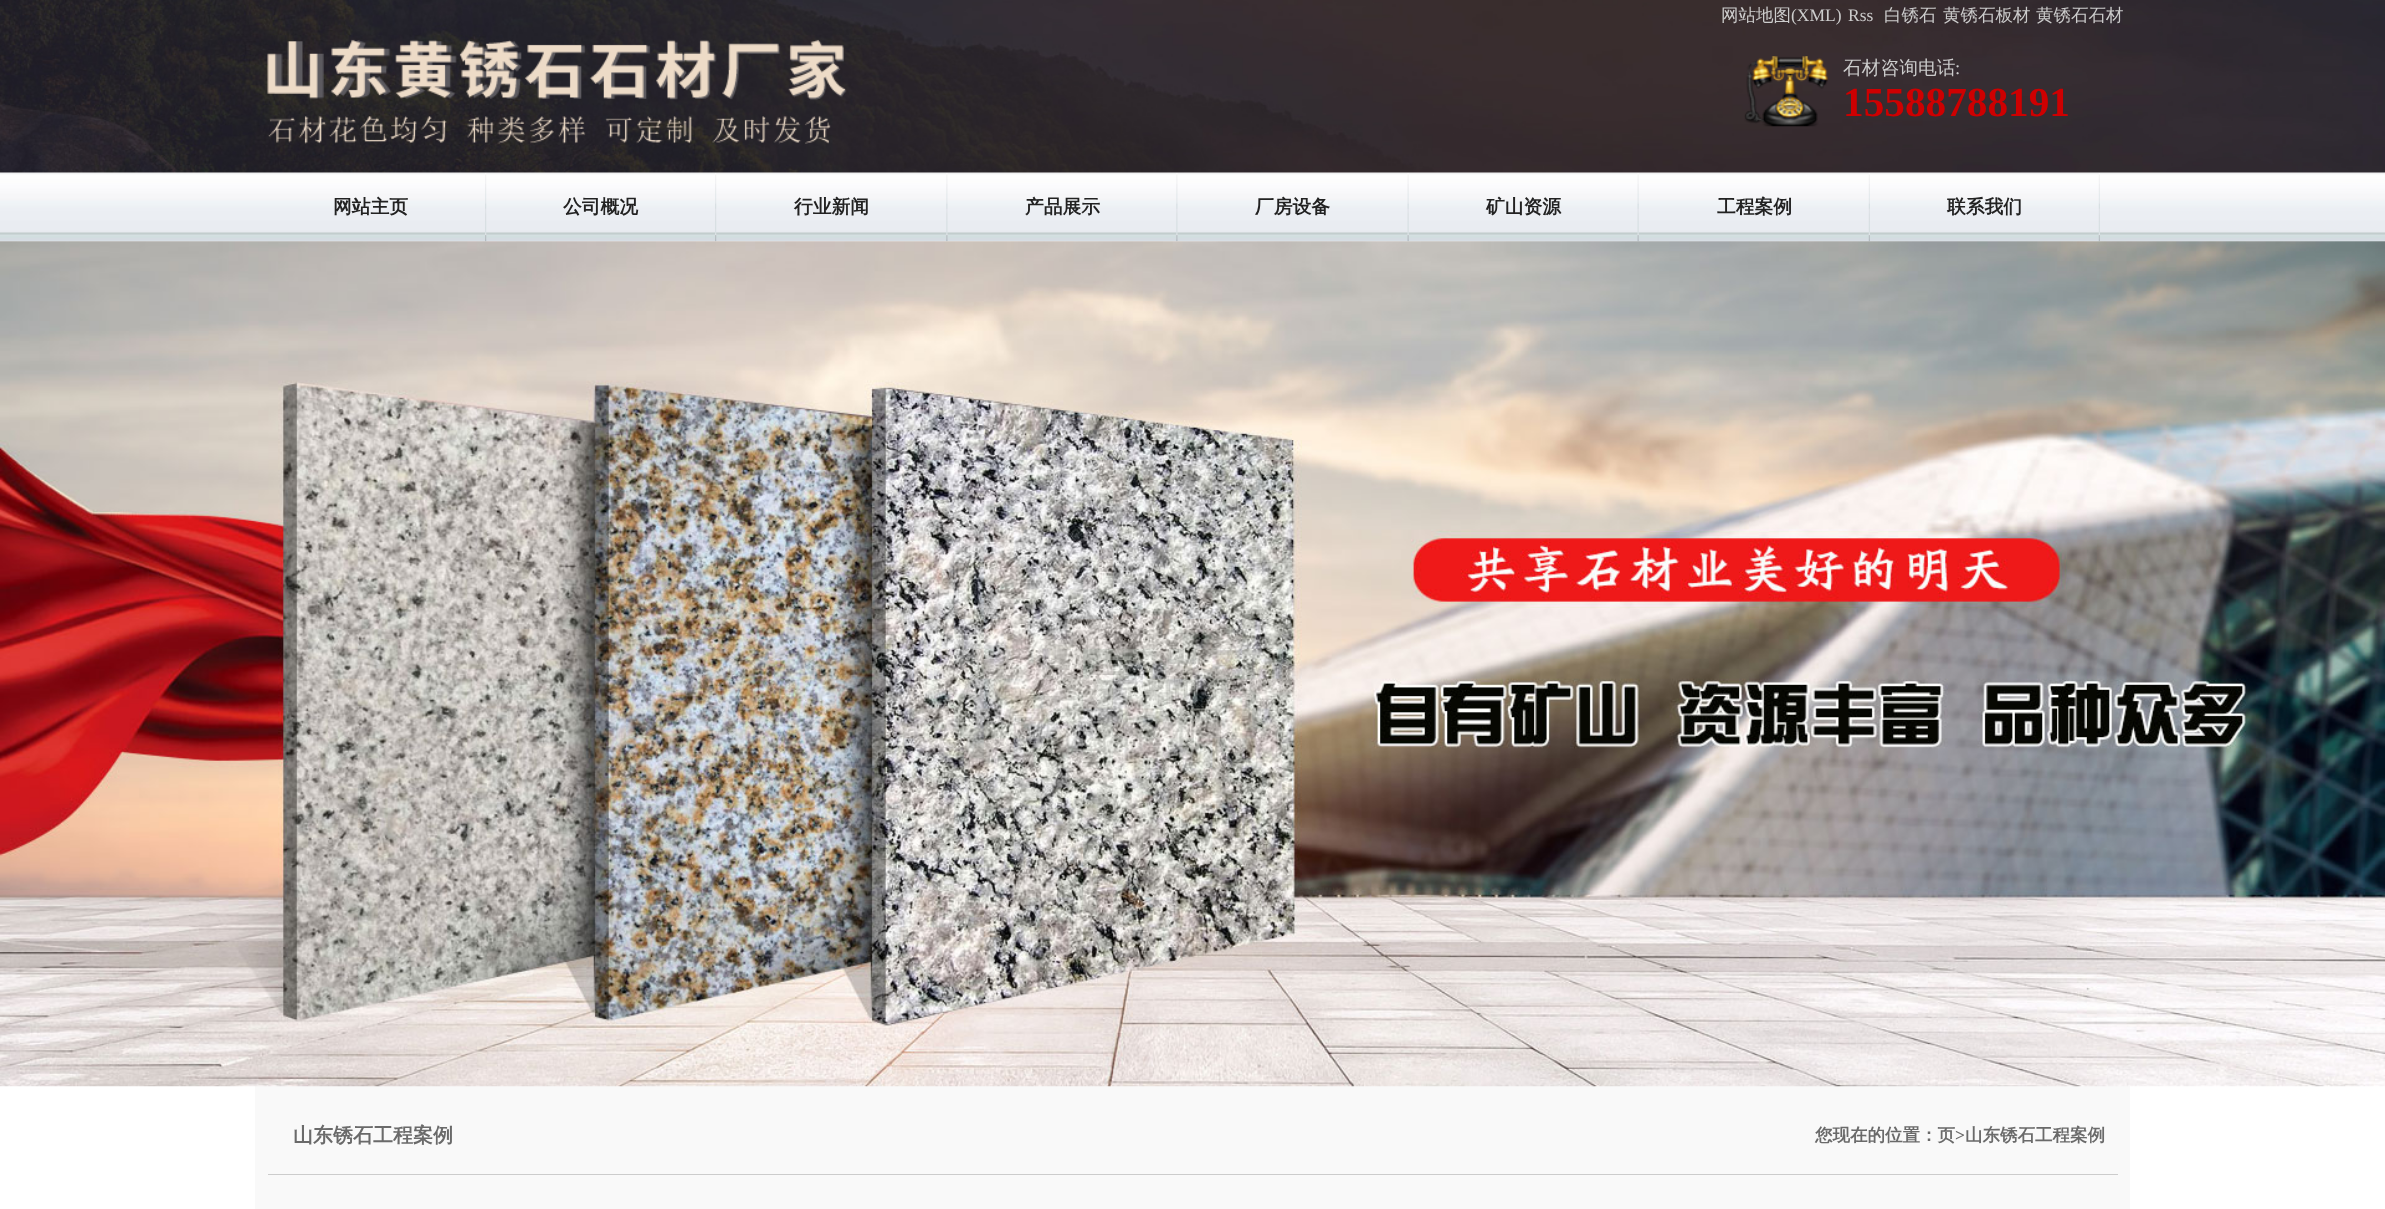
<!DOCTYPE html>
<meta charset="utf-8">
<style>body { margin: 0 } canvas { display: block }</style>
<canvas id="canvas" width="2385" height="1209"></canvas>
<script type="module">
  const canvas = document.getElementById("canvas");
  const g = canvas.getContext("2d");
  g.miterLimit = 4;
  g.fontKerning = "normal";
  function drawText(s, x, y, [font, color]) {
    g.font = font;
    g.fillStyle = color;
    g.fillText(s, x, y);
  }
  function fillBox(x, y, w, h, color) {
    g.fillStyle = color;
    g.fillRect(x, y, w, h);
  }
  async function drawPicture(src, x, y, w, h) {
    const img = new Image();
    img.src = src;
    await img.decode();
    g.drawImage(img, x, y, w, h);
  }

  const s1 = ["500 17.5px WenQuanYi Zen Hei", "#CCCCCC"];
  const s2 = ["17.5px Liberation Serif", "#CCCCCC"];
  const s3 = ["500 18.75px WenQuanYi Zen Hei", "#CCCCCC"];
  const s4 = ["18.75px Liberation Serif", "#CCCCCC"];
  const s5 = ["bold 41.25px Liberation Serif", "#CE0001"];
  const s6 = ["bold 18.75px WenQuanYi Zen Hei", "#222222"];
  const s7 = ["bold 20px WenQuanYi Zen Hei", "#6A6A6A"];
  const s8 = ["bold 17.5px WenQuanYi Zen Hei", "#6A6A6A"];
  const s9 = ["bold 17.5px Liberation Serif", "#6A6A6A"];

  fillBox(0, 0, 2385, 1209, "#FFFFFF");
  await drawPicture("pic4.png", 0, 172, 2385, 70);
  await drawPicture("pic1.png", 0, 0, 2385, 173);
  drawText("网站地图", 1721, 21, s1);
  drawText("(XML)", 1791, 21, s2);
  drawText("Rss", 1848, 21, s2);
  drawText("白锈石", 1884, 21, s1);
  drawText("黄锈石板材", 1943, 21, s1);
  drawText("黄锈石石材", 2036, 21, s1);
  await drawPicture("pic2.png", 267, 39, 580, 105);
  await drawPicture("pic3.png", 1744, 56, 84, 71);
  drawText("石材咨询电话", 1843, 74, s3);
  drawText(":", 1955, 74, s4);
  drawText("15588788191", 1843, 116, s5);
  await drawPicture("pic5.png", 485, 173, 2, 69);
  drawText("网站主页", 333, 213, s6);
  await drawPicture("pic5.png", 715, 173, 2, 69);
  drawText("公司概况", 563, 213, s6);
  await drawPicture("pic6.png", 946, 173, 2, 69);
  drawText("行业新闻", 794, 213, s6);
  await drawPicture("pic6.png", 1176, 173, 2, 69);
  drawText("产品展示", 1025, 213, s6);
  await drawPicture("pic7.png", 1407, 173, 2, 69);
  drawText("厂房设备", 1255, 213, s6);
  await drawPicture("pic7.png", 1637, 173, 2, 69);
  drawText("矿山资源", 1486, 213, s6);
  await drawPicture("pic8.png", 1868, 173, 2, 69);
  drawText("工程案例", 1717, 213, s6);
  await drawPicture("pic8.png", 2098, 173, 2, 69);
  drawText("联系我们", 1947, 213, s6);
  fillBox(255, 1086, 1875, 123, "#F9F9F9");
  await drawPicture("pic9.png", 0, 241, 2385, 846);
  fillBox(268, 1174, 1850, 1, "#CCCCCC");
  drawText("山东锈石工程案例", 293, 1142, s7);
  drawText("您现在的位置：页", 1815, 1141, s8);
  drawText(">", 1955, 1141, s9);
  drawText("山东锈石工程案例", 1965, 1141, s8);
</script>
